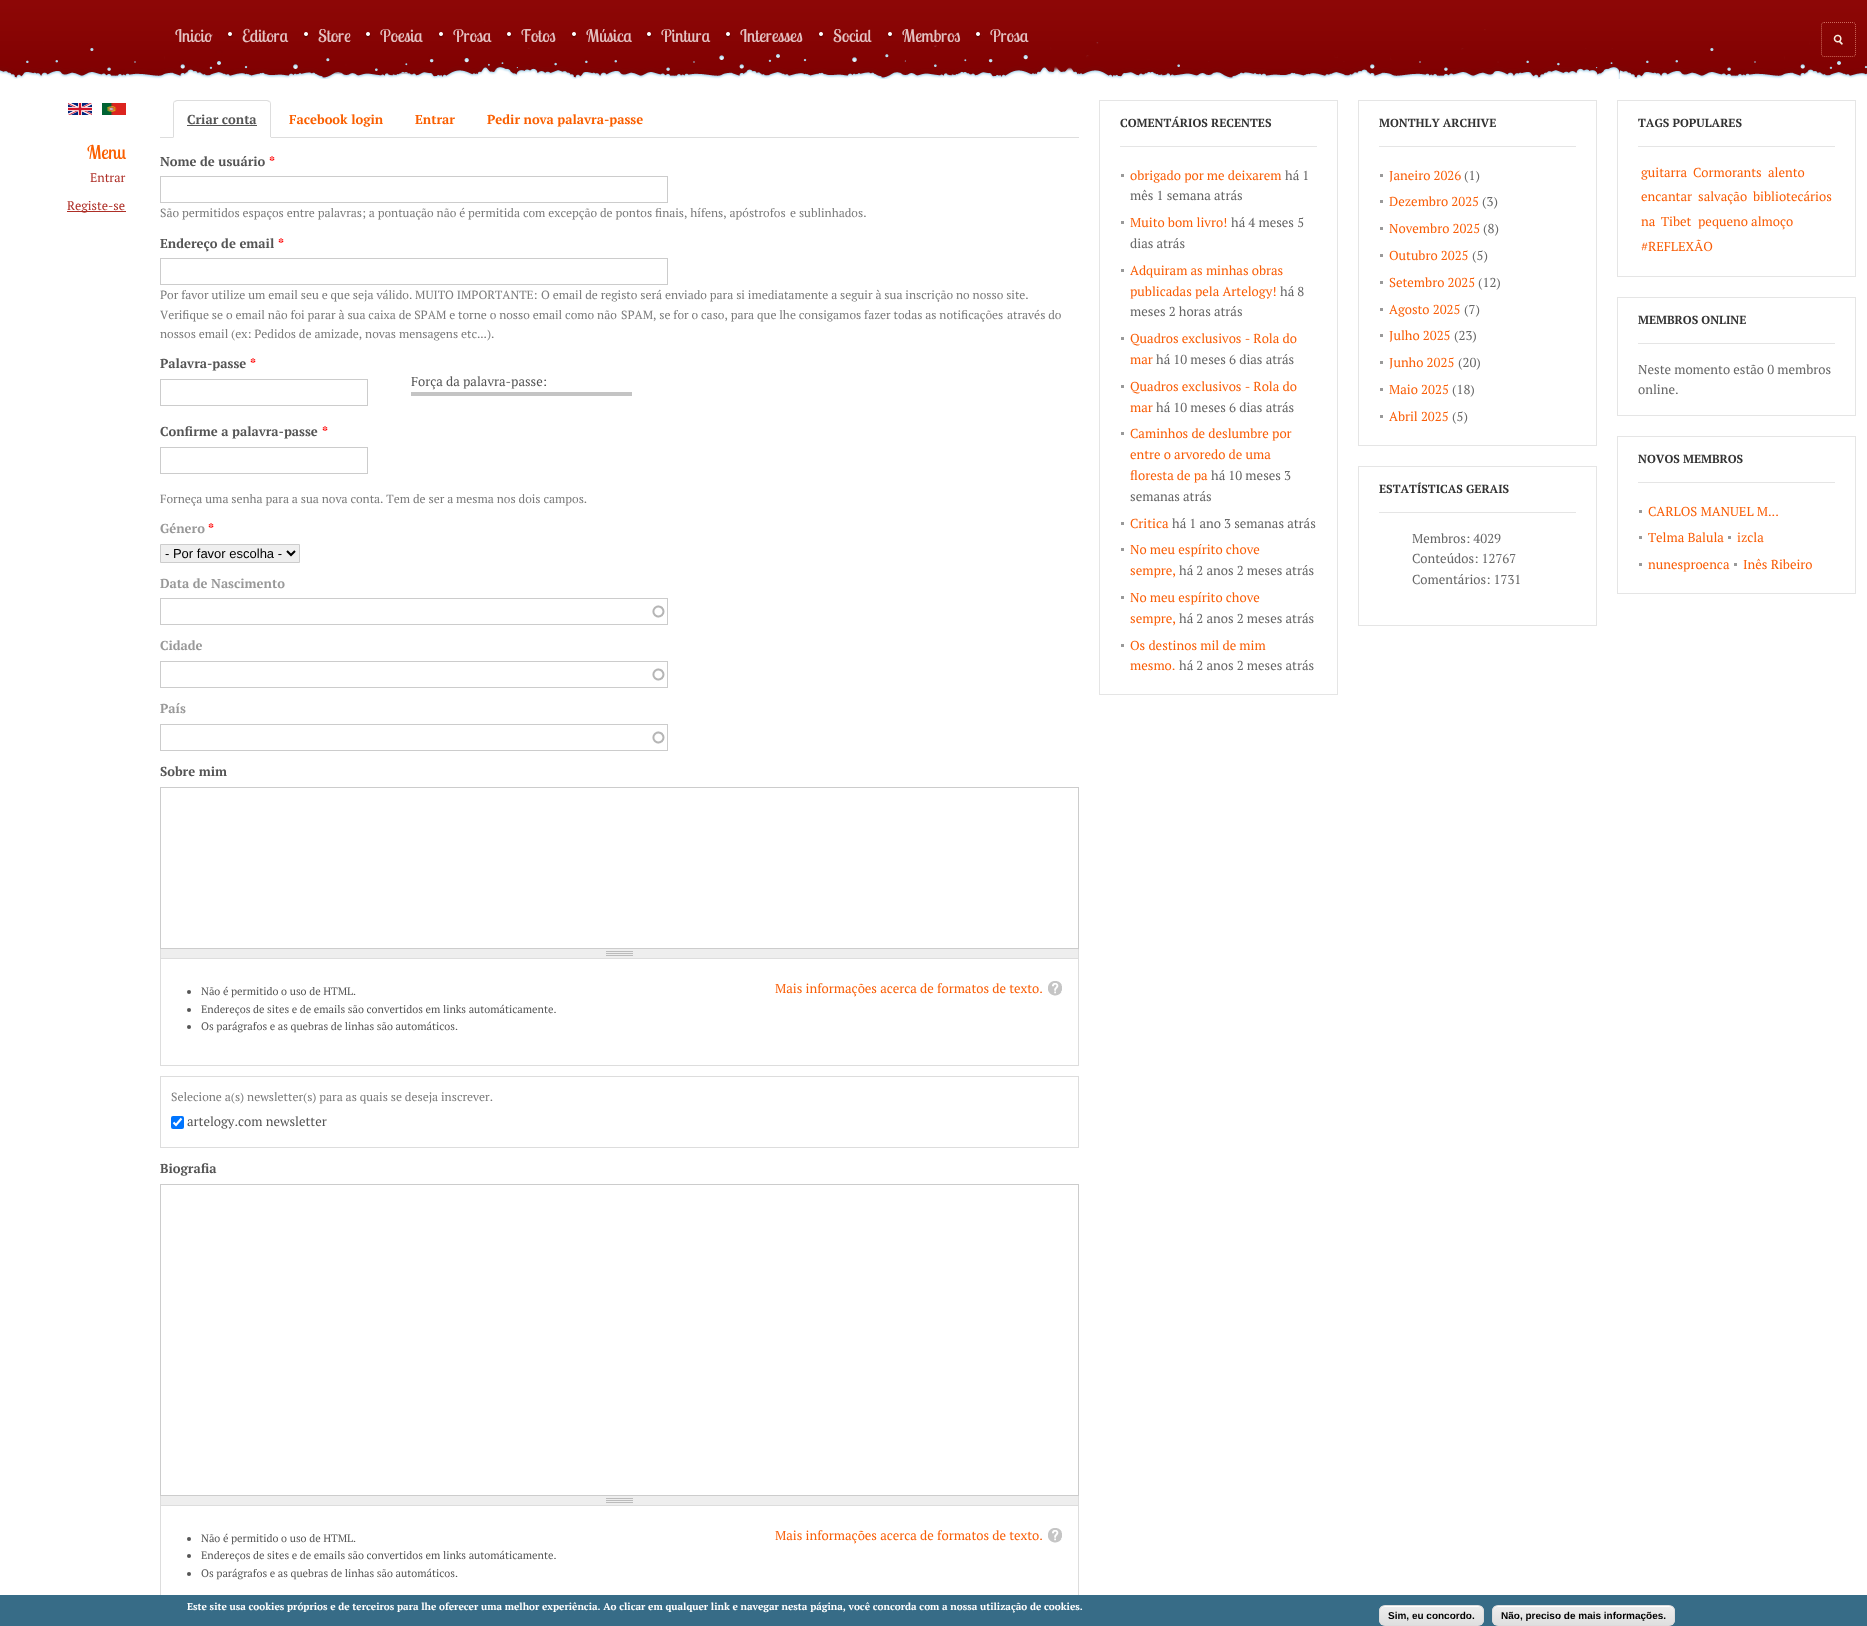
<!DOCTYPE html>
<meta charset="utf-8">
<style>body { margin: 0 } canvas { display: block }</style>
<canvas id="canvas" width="1867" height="1626"></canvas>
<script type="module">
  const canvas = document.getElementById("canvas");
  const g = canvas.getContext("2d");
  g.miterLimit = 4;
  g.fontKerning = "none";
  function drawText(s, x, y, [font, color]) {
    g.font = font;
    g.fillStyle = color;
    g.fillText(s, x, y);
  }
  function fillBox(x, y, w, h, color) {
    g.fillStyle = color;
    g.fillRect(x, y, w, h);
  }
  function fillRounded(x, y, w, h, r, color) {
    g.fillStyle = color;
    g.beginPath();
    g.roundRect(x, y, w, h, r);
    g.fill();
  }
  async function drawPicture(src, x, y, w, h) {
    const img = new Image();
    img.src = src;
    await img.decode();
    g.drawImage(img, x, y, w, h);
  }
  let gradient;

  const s1 = ["17.5px Lobster Two", "#E3C1C1"];
  const s2 = ["19px Lobster Two", "#FA5F00"];
  const s3 = ["12.5px PT Serif", "#AE2F27"];
  const s4 = ["bold 13px PT Serif", "#555555"];
  const s5 = ["bold 13px PT Serif", "#FA5F00"];
  const s6 = ["bold 13px PT Serif", "#FF0000"];
  const s7 = ["11.95px PT Serif", "#7B7B7B"];
  const s8 = ["13px PT Serif", "#555555"];
  const s9 = ["bold 13px PT Serif", "#999999"];
  const s10 = ["13px Liberation Sans", "#000000"];
  const s11 = ["10.8px PT Serif", "#555555"];
  const s12 = ["13px PT Serif", "#F95E07"];
  const s13 = ["bold 11.75px PT Serif", "#333333"];
  const s14 = ["13px PT Serif", "#666666"];
  const s15 = ["bold 10px PT Serif", "#FFFFFF"];
  const s16 = ["bold 10px Liberation Sans", "#000000"];

  fillBox(0, 0, 1867, 1626, "#FFFFFF");
  await drawPicture("pic1.png", 0, 0, 1867, 79);
  drawText("Inicio", 175, 42, s1);
  await drawPicture("pic2.png", 227, 32, 6, 6);
  drawText("Editora", 242, 42, s1);
  await drawPicture("pic2.png", 303, 32, 6, 6);
  drawText("Store", 318, 42, s1);
  await drawPicture("pic2.png", 365, 32, 6, 6);
  drawText("Poesia", 380, 42, s1);
  await drawPicture("pic2.png", 438, 32, 6, 6);
  drawText("Prosa", 453, 42, s1);
  await drawPicture("pic2.png", 506, 32, 6, 6);
  drawText("Fotos", 521, 42, s1);
  await drawPicture("pic2.png", 571, 32, 6, 6);
  drawText("Música", 586, 42, s1);
  await drawPicture("pic2.png", 646, 32, 6, 6);
  drawText("Pintura", 661, 42, s1);
  await drawPicture("pic2.png", 725, 32, 6, 6);
  drawText("Interesses", 740, 42, s1);
  await drawPicture("pic2.png", 818, 32, 6, 6);
  drawText("Social", 833, 42, s1);
  await drawPicture("pic2.png", 887, 32, 6, 6);
  drawText("Membros", 902, 42, s1);
  await drawPicture("pic3.png", 975, 32, 6, 6);
  drawText("Prosa", 990, 42, s1);
  g.beginPath();
  g.moveTo(1824, 22.5);
  g.lineTo(1853, 22.5);
  g.bezierCurveTo(1854.5, 22.5, 1855.5, 23.5, 1855.5, 25);
  g.lineTo(1855.5, 54);
  g.bezierCurveTo(1855.5, 55.5, 1854.5, 56.5, 1853, 56.5);
  g.lineTo(1824, 56.5);
  g.bezierCurveTo(1822.5, 56.5, 1821.5, 55.5, 1821.5, 54);
  g.lineTo(1821.5, 25);
  g.bezierCurveTo(1821.5, 23.5, 1822.5, 22.5, 1824, 22.5);
  g.closePath();
  g.strokeStyle = "#CE6B5D";
  g.setLineDash([1, 1]);
  g.stroke();
  await drawPicture("pic4.png", 1833, 34, 10, 11);
  await drawPicture("pic5.png", 68, 103, 24, 12);
  await drawPicture("pic6.png", 102, 103, 24, 12);
  drawText("Menu", 87, 159, s2);
  drawText("Entrar", 90, 182, s3);
  fillBox(67, 211, 59, 1, "#AE2F27");
  drawText("Registe-se", 67, 210, s3);
  fillBox(160, 137, 919, 1, "#DDDDDD");
  g.fillStyle = "#FFFFFF";
  g.beginPath();
  g.roundRect(173, 100, 98, 38, [4, 4, 0, 0]);
  g.fill();
  g.fillStyle = "#DDDDDD";
  g.beginPath();
  g.moveTo(177, 100);
  g.lineTo(174, 101);
  g.lineTo(175, 102);
  g.lineTo(177, 101);
  g.lineTo(267, 101);
  g.lineTo(269, 102);
  g.lineTo(270, 101);
  g.lineTo(267, 100);
  g.closePath();
  g.fill();
  g.beginPath();
  g.moveTo(271, 138);
  g.lineTo(271, 104);
  g.bezierCurveTo(271, 103, 270.5, 102, 270, 101);
  g.lineTo(269, 102);
  g.bezierCurveTo(270, 102, 270, 103, 270, 104);
  g.lineTo(270, 137);
  g.closePath();
  g.fill();
  g.fillStyle = "#FFFFFF";
  g.beginPath();
  g.moveTo(271, 138);
  g.lineTo(270, 137);
  g.lineTo(174, 137);
  g.lineTo(173, 138);
  g.closePath();
  g.fill();
  g.fillStyle = "#DDDDDD";
  g.beginPath();
  g.moveTo(173, 138);
  g.lineTo(174, 137);
  g.lineTo(174, 104);
  g.bezierCurveTo(174, 103, 174, 102, 175, 102);
  g.lineTo(174, 101);
  g.bezierCurveTo(173.5, 102, 173, 103, 173, 104);
  g.closePath();
  g.fill();
  drawText("Criar conta", 187, 124, s4);
  fillBox(187, 125, 70, 1, "#555555");
  drawText("Facebook login", 289, 124, s5);
  drawText("Entrar", 415, 124, s5);
  drawText("Pedir nova palavra-passe", 487, 124, s5);
  drawText("Nome de usuário", 160, 166, s4);
  drawText("*", 269, 166, s6);
  g.strokeStyle = "#CCCCCC";
  g.setLineDash([]);
  g.strokeRect(160.5, 176.5, 507, 26);
  drawText("São permitidos espaços entre palavras; a pontuação não é permitida com excepção de pontos finais, hífens, apóstrofos", 160, 217, s7);
  drawText("e sublinhados.", 790, 217, s7);
  drawText("Endereço de email", 160, 248, s4);
  drawText("*", 278, 248, s6);
  g.strokeRect(160.5, 258.5, 507, 26);
  drawText("Por favor utilize um email seu e que seja válido. MUITO IMPORTANTE:", 160, 299, s7);
  drawText("O email de registo será enviado para si imediatamente a seguir à sua inscrição no nosso site.", 541, 299, s7);
  drawText("Verifique se o email não foi parar à sua caixa de SPAM e torne o nosso email como não", 160, 319, s7);
  drawText("SPAM, se for o caso, para que lhe consigamos fazer todas as notificações", 621, 319, s7);
  drawText("através do", 1007, 319, s7);
  drawText("nossos email (ex: Pedidos de amizade, novas mensagens etc...).", 160, 338, s7);
  drawText("Palavra-passe", 160, 368, s4);
  drawText("*", 250, 368, s6);
  g.strokeRect(160.5, 379.5, 207, 26);
  drawText("Força da palavra-passe:", 411, 386, s8);
  fillBox(411, 392, 221, 4, "#C4C4C4");
  drawText("Confirme a palavra-passe", 160, 436, s4);
  drawText("*", 322, 436, s6);
  g.strokeRect(160.5, 447.5, 207, 26);
  drawText("Forneça uma senha para a sua nova conta. Tem de ser a mesma nos dois campos.", 160, 503, s7);
  drawText("Género", 160, 533, s9);
  drawText("*", 208, 533, s6);
  g.fillStyle = "#EFEFEF";
  g.beginPath();
  g.rect(160.5, 544.5, 139, 18);
  g.fill();
  g.stroke();
  g.beginPath();
  g.moveTo(287, 551);
  g.lineTo(291, 555);
  g.lineTo(295, 551);
  g.strokeStyle = "#000000";
  g.lineWidth = 2;
  g.stroke();
  drawText("- Por favor escolha -", 165, 558, s10);
  drawText("Data de Nascimento", 160, 588, s9);
  await drawPicture("pic7.png", 652, 605, 13, 13);
  g.strokeStyle = "#CCCCCC";
  g.lineWidth = 1;
  g.strokeRect(160.5, 598.5, 507, 26);
  drawText("Cidade", 160, 650, s9);
  await drawPicture("pic7.png", 652, 668, 13, 13);
  g.strokeRect(160.5, 661.5, 507, 26);
  drawText("País", 160, 713, s9);
  await drawPicture("pic7.png", 652, 731, 13, 13);
  g.strokeRect(160.5, 724.5, 507, 26);
  drawText("Sobre mim", 160, 776, s4);
  g.strokeRect(160.5, 787.5, 918, 161);
  fillBox(161, 949, 917, 9, "#EEEEEE");
  await drawPicture("pic8.png", 606, 951, 27, 5);
  fillBox(1078, 949, 1, 117, "#DDDDDD");
  fillBox(160, 958, 919, 1, "#DDDDDD");
  fillBox(160, 949, 1, 10, "#DDDDDD");
  fillBox(160, 1065, 919, 1, "#DDDDDD");
  fillBox(160, 959, 1, 107, "#DDDDDD");
  g.fillStyle = "#555555";
  g.beginPath();
  g.arc(189, 992, 2, 0, Math.PI * 2);
  g.fill();
  drawText("Não é permitido o uso de HTML.", 201, 995, s11);
  g.beginPath();
  g.arc(189, 1010, 2, 0, Math.PI * 2);
  g.fill();
  drawText("Endereços de sites e de emails são convertidos em links automáticamente.", 201, 1013, s11);
  g.beginPath();
  g.arc(189, 1027, 2, 0, Math.PI * 2);
  g.fill();
  drawText("Os parágrafos e as quebras de linhas são automáticos.", 201, 1030, s11);
  drawText("Mais informações acerca de formatos de texto.", 775, 993, s12);
  await drawPicture("pic9.png", 1048, 981, 14, 15);
  g.strokeStyle = "#DDDDDD";
  g.strokeRect(160.5, 1076.5, 918, 71);
  drawText("Selecione a(s) newsletter(s) para as quais se deseja inscrever.", 171, 1101, s7);
  fillRounded(171, 1116, 13, 13, 2, "#0075FF");
  g.beginPath();
  g.moveTo(173.5, 1122.5);
  g.lineTo(176, 1125);
  g.lineTo(181.5, 1118.5);
  g.strokeStyle = "#FFFFFF";
  g.lineWidth = 2.1;
  g.stroke();
  drawText("artelogy.com newsletter", 187, 1126, s8);
  drawText("Biografia", 160, 1173, s4);
  g.strokeStyle = "#CCCCCC";
  g.lineWidth = 1;
  g.strokeRect(160.5, 1184.5, 918, 311);
  fillBox(161, 1496, 917, 9, "#EEEEEE");
  await drawPicture("pic8.png", 606, 1498, 27, 5);
  fillBox(1078, 1496, 1, 99, "#DDDDDD");
  fillBox(160, 1505, 919, 1, "#DDDDDD");
  fillBox(160, 1496, 1, 10, "#DDDDDD");
  fillBox(160, 1506, 1, 89, "#DDDDDD");
  g.fillStyle = "#555555";
  g.beginPath();
  g.arc(189, 1539, 2, 0, Math.PI * 2);
  g.fill();
  drawText("Não é permitido o uso de HTML.", 201, 1542, s11);
  g.beginPath();
  g.arc(189, 1556, 2, 0, Math.PI * 2);
  g.fill();
  drawText("Endereços de sites e de emails são convertidos em links automáticamente.", 201, 1559, s11);
  g.beginPath();
  g.arc(189, 1574, 2, 0, Math.PI * 2);
  g.fill();
  drawText("Os parágrafos e as quebras de linhas são automáticos.", 201, 1577, s11);
  drawText("Mais informações acerca de formatos de texto.", 775, 1540, s12);
  await drawPicture("pic9.png", 1048, 1528, 14, 15);
  g.strokeStyle = "#E5E5E5";
  g.strokeRect(1099.5, 100.5, 238, 594);
  fillBox(1120, 146, 197, 1, "#E5E5E5");
  drawText("COMENTÁRIOS RECENTES", 1120, 127, s13);
  fillBox(1121, 174, 3, 3, "#999999");
  drawText("obrigado por me deixarem", 1130, 180, s12);
  drawText("há 1", 1285, 180, s14);
  drawText("mês 1 semana atrás", 1130, 200, s14);
  fillBox(1121, 221, 3, 3, "#999999");
  drawText("Muito bom livro!", 1130, 227, s12);
  drawText("há 4 meses 5", 1231, 227, s14);
  drawText("dias atrás", 1130, 248, s14);
  fillBox(1121, 269, 3, 3, "#999999");
  drawText("Adquiram as minhas obras", 1130, 275, s12);
  drawText("publicadas pela Artelogy!", 1130, 296, s12);
  drawText("há 8", 1280, 296, s14);
  drawText("meses 2 horas atrás", 1130, 316, s14);
  fillBox(1121, 337, 3, 3, "#999999");
  drawText("Quadros exclusivos - Rola do", 1130, 343, s12);
  drawText("mar", 1130, 364, s12);
  drawText("há 10 meses 6 dias atrás", 1156, 364, s14);
  fillBox(1121, 385, 3, 3, "#999999");
  drawText("Quadros exclusivos - Rola do", 1130, 391, s12);
  drawText("mar", 1130, 412, s12);
  drawText("há 10 meses 6 dias atrás", 1156, 412, s14);
  fillBox(1121, 432, 3, 3, "#999999");
  drawText("Caminhos de deslumbre por", 1130, 438, s12);
  drawText("entre o arvoredo de uma", 1130, 459, s12);
  drawText("floresta de pa", 1130, 480, s12);
  drawText("há 10 meses 3", 1211, 480, s14);
  drawText("semanas atrás", 1130, 501, s14);
  fillBox(1121, 522, 3, 3, "#999999");
  drawText("Critica", 1130, 528, s12);
  drawText("há 1 ano 3 semanas atrás", 1172, 528, s14);
  fillBox(1121, 548, 3, 3, "#999999");
  drawText("No meu espírito chove", 1130, 554, s12);
  drawText("sempre,", 1130, 575, s12);
  drawText("há 2 anos 2 meses atrás", 1179, 575, s14);
  fillBox(1121, 596, 3, 3, "#999999");
  drawText("No meu espírito chove", 1130, 602, s12);
  drawText("sempre,", 1130, 623, s12);
  drawText("há 2 anos 2 meses atrás", 1179, 623, s14);
  fillBox(1121, 644, 3, 3, "#999999");
  drawText("Os destinos mil de mim", 1130, 650, s12);
  drawText("mesmo.", 1130, 670, s12);
  drawText("há 2 anos 2 meses atrás", 1179, 670, s14);
  g.strokeRect(1358.5, 100.5, 238, 345);
  fillBox(1379, 146, 197, 1, "#E5E5E5");
  drawText("MONTHLY ARCHIVE", 1379, 127, s13);
  fillBox(1380, 174, 3, 3, "#999999");
  drawText("Janeiro 2026", 1389, 180, s12);
  drawText("(1)", 1464, 180, s14);
  fillBox(1380, 200, 3, 3, "#999999");
  drawText("Dezembro 2025", 1389, 206, s12);
  drawText("(3)", 1482, 206, s14);
  fillBox(1380, 227, 3, 3, "#999999");
  drawText("Novembro 2025", 1389, 233, s12);
  drawText("(8)", 1483, 233, s14);
  fillBox(1380, 254, 3, 3, "#999999");
  drawText("Outubro 2025", 1389, 260, s12);
  drawText("(5)", 1472, 260, s14);
  fillBox(1380, 281, 3, 3, "#999999");
  drawText("Setembro 2025", 1389, 287, s12);
  drawText("(12)", 1478, 287, s14);
  fillBox(1380, 308, 3, 3, "#999999");
  drawText("Agosto 2025", 1389, 314, s12);
  drawText("(7)", 1464, 314, s14);
  fillBox(1380, 334, 3, 3, "#999999");
  drawText("Julho 2025", 1389, 340, s12);
  drawText("(23)", 1454, 340, s14);
  fillBox(1380, 361, 3, 3, "#999999");
  drawText("Junho 2025", 1389, 367, s12);
  drawText("(20)", 1458, 367, s14);
  fillBox(1380, 388, 3, 3, "#999999");
  drawText("Maio 2025", 1389, 394, s12);
  drawText("(18)", 1452, 394, s14);
  fillBox(1380, 415, 3, 3, "#999999");
  drawText("Abril 2025", 1389, 421, s12);
  drawText("(5)", 1452, 421, s14);
  g.strokeRect(1617.5, 100.5, 238, 176);
  fillBox(1638, 146, 197, 1, "#E5E5E5");
  drawText("TAGS POPULARES", 1638, 127, s13);
  drawText("guitarra", 1641, 177, s12);
  drawText("Cormorants", 1693, 177, s12);
  drawText("alento", 1768, 177, s12);
  drawText("encantar", 1641, 201, s12);
  drawText("salvação", 1698, 201, s12);
  drawText("bibliotecários", 1753, 201, s12);
  drawText("na", 1641, 226, s12);
  drawText("Tibet", 1661, 226, s12);
  drawText("pequeno almoço", 1698, 226, s12);
  drawText("#REFLEXÃO", 1641, 251, s12);
  g.strokeRect(1617.5, 297.5, 238, 118);
  fillBox(1638, 343, 197, 1, "#E5E5E5");
  drawText("MEMBROS ONLINE", 1638, 324, s13);
  drawText("Neste momento estão 0 membros", 1638, 374, s14);
  drawText("online.", 1638, 394, s14);
  g.strokeRect(1358.5, 466.5, 238, 159);
  fillBox(1379, 512, 197, 1, "#E5E5E5");
  drawText("ESTATÍSTICAS GERAIS", 1379, 493, s13);
  drawText("Membros: 4029", 1412, 543, s14);
  drawText("Conteúdos: 12767", 1412, 563, s14);
  drawText("Comentários: 1731", 1412, 584, s14);
  g.strokeRect(1617.5, 436.5, 238, 157);
  fillBox(1638, 482, 197, 1, "#E5E5E5");
  drawText("NOVOS MEMBROS", 1638, 463, s13);
  fillBox(1639, 510, 3, 3, "#999999");
  drawText("CARLOS MANUEL M...", 1648, 516, s12);
  fillBox(1639, 536, 3, 3, "#999999");
  drawText("Telma Balula", 1648, 542, s12);
  fillBox(1728, 536, 3, 3, "#999999");
  drawText("izcla", 1737, 542, s12);
  fillBox(1639, 563, 3, 3, "#999999");
  drawText("nunesproenca", 1648, 569, s12);
  fillBox(1734, 563, 3, 3, "#999999");
  drawText("Inês Ribeiro", 1743, 569, s12);
  fillBox(0, 1595, 1867, 31, "#376C87");
  drawText("Este site usa cookies próprios e de terceiros para lhe oferecer uma melhor experiência. Ao clicar em qualquer link e navegar nesta página, você concorda com a nossa utilização de cookies.", 187, 1610, s15);
  g.save();
  g.beginPath();
  g.roundRect(1379, 1605, 105, 21, 6);
  g.clip();
  gradient = g.createLinearGradient(1380, 1606, 1380, 1625);
  gradient.addColorStop(0.05, "#EDEDED");
  gradient.addColorStop(1, "#DFDFDF");
  g.fillStyle = gradient;
  g.fillRect(1379, 1606, 105, 19);
  g.restore();
  g.beginPath();
  g.moveTo(1385, 1607);
  g.lineTo(1478, 1607);
  g.bezierCurveTo(1481, 1607, 1483, 1609, 1483, 1612);
  g.bezierCurveTo(1483, 1602, 1468, 1606, 1462, 1606);
  g.lineTo(1400, 1606);
  g.bezierCurveTo(1395, 1606, 1380, 1602, 1380, 1612);
  g.bezierCurveTo(1380, 1609, 1382, 1607, 1385, 1607);
  g.closePath();
  g.fill();
  g.beginPath();
  g.roundRect(1379.5, 1605.5, 104, 20, 5.5);
  g.strokeStyle = "#DCDCDC";
  g.stroke();
  drawText("Sim, eu concordo.", 1388, 1619, s16);
  g.save();
  g.beginPath();
  g.roundRect(1492, 1605, 183, 21, 6);
  g.clip();
  gradient = g.createLinearGradient(1493, 1606, 1493, 1625);
  gradient.addColorStop(0.05, "#EDEDED");
  gradient.addColorStop(1, "#DFDFDF");
  g.fillStyle = gradient;
  g.fillRect(1492, 1606, 183, 19);
  g.restore();
  g.fillStyle = "#FFFFFF";
  g.beginPath();
  g.moveTo(1498, 1607);
  g.lineTo(1669, 1607);
  g.bezierCurveTo(1672, 1607, 1674, 1609, 1674, 1612);
  g.bezierCurveTo(1674, 1609, 1673, 1607, 1670, 1606);
  g.lineTo(1498, 1606);
  g.bezierCurveTo(1495, 1606, 1493, 1609, 1493, 1612);
  g.bezierCurveTo(1493, 1609, 1495, 1607, 1498, 1607);
  g.closePath();
  g.fill();
  g.beginPath();
  g.roundRect(1492.5, 1605.5, 182, 20, 5.5);
  g.stroke();
  drawText("Não, preciso de mais informações.", 1501, 1619, s16);
</script>
